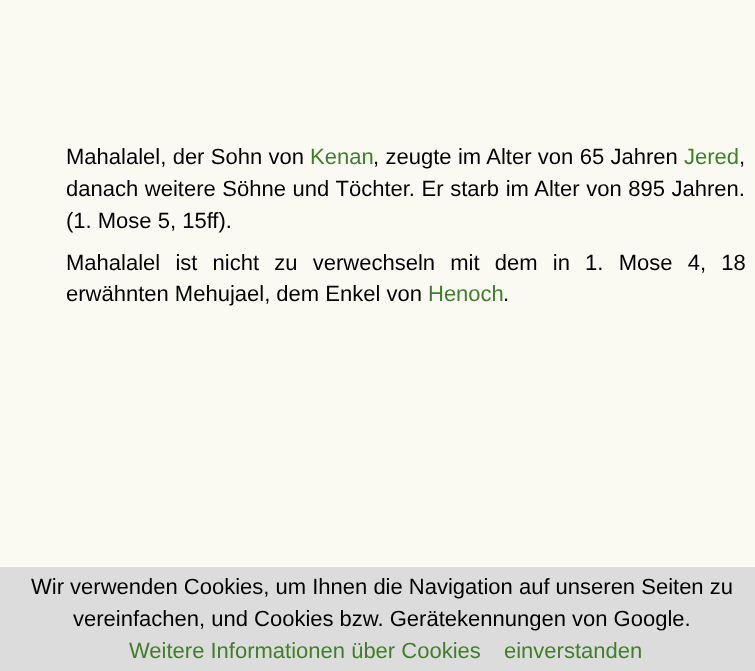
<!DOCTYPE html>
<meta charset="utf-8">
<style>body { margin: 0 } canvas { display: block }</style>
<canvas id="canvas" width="755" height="671"></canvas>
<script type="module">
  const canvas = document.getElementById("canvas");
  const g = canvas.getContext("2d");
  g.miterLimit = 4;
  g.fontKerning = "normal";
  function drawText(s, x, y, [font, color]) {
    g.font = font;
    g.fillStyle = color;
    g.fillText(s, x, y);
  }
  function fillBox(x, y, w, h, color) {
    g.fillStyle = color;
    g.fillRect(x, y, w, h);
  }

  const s1 = ["22px Liberation Sans", "#000000"];
  const s2 = ["22px Liberation Sans", "#407E2A"];

  fillBox(0, 0, 755, 671, "#FAFAF2");
  g.wordSpacing = "0.25px";
  drawText("Mahalalel, der Sohn von", 66, 164, s1);
  g.wordSpacing = "0px";
  drawText("Kenan", 310, 164, s2);
  g.wordSpacing = "0.25px";
  drawText(", zeugte im Alter von 65 Jahren", 373, 164, s1);
  g.wordSpacing = "0px";
  drawText("Jered", 684, 164, s2);
  drawText(",", 739, 164, s1);
  g.wordSpacing = "0.5px";
  drawText("danach weitere Söhne und Töchter. Er starb im Alter von 895 Jahren.", 66, 196, s1);
  g.wordSpacing = "0px";
  drawText("(1. Mose 5, 15ff).", 66, 228, s1);
  g.wordSpacing = "9.1px";
  drawText("Mahalalel ist nicht zu verwechseln mit dem in 1. Mose 4, 18", 66, 270, s1);
  g.wordSpacing = "0px";
  drawText("erwähnten Mehujael, dem Enkel von", 66, 301, s1);
  drawText("Henoch", 428, 301, s2);
  drawText(".", 503, 301, s1);
  fillBox(0, 567, 755, 104, "#DCDCDC");
  drawText("Wir verwenden Cookies, um Ihnen die Navigation auf unseren Seiten zu", 31, 594, s1);
  drawText("vereinfachen, und Cookies bzw. Gerätekennungen von Google.", 73, 626, s1);
  drawText("Weitere Informationen über Cookies", 129, 658, s2);
  drawText("einverstanden", 504, 658, s2);
</script>
